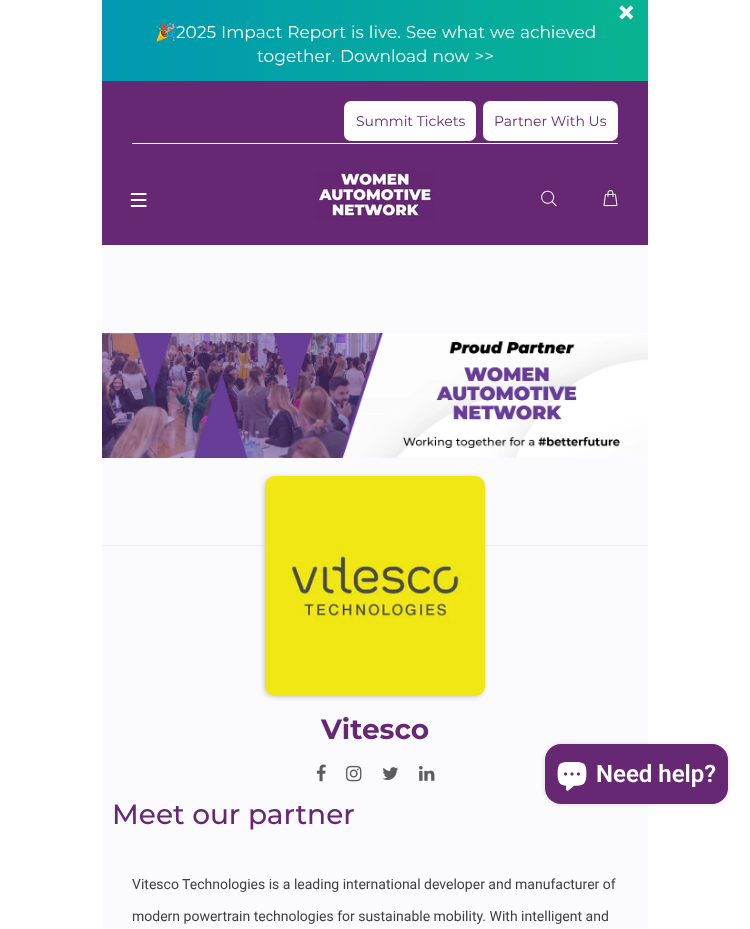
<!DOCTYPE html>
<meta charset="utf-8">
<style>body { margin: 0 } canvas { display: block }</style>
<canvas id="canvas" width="750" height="929"></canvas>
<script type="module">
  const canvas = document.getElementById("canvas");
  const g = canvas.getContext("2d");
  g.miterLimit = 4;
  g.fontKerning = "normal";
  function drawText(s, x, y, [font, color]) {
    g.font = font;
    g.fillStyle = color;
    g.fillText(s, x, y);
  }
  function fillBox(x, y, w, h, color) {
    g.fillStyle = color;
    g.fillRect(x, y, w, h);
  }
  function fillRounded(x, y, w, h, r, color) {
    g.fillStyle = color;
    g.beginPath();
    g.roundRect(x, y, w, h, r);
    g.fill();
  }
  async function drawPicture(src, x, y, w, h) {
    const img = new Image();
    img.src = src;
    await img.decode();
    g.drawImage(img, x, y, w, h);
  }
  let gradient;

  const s1 = ["17px Noto Color Emoji", "#FFFFFF"];
  const s2 = ["17px Montserrat", "#FFFFFF"];
  const s3 = ["14px Montserrat", "#662773"];
  const s4 = ["bold 28px Montserrat", "#662773"];
  const s5 = ["500 28px Montserrat", "#662773"];
  const s6 = ["14px Roboto", "#3E3F42"];
  const s7 = ["600 24px Roboto", "#FFFFFF"];

  fillBox(0, 0, 750, 929, "#FFFFFF");
  fillBox(102, 81, 546, 164, "#662773");
  gradient = g.createLinearGradient(102, 41, 648, 40);
  gradient.addColorStop(0, "#0098B2");
  gradient.addColorStop(1, "#08B490");
  g.fillStyle = gradient;
  g.fillRect(102, 0, 546, 81);
  await drawPicture("pic1.png", 619, 5, 15, 15);
  drawText("🎉", 155, 38, s1);
  g.wordSpacing = "0.5px";
  drawText("2025 Impact Report is live. See what we achieved", 176, 38, s2);
  drawText("together. Download now >>", 257, 62, s2);
  fillBox(132, 143, 486, 1, "#FFFFFF");
  fillRounded(344, 101, 132, 40, 7, "#FFFFFF");
  g.wordSpacing = "0px";
  drawText("Summit Tickets", 356, 126, s3);
  fillRounded(483, 101, 135, 40, 7, "#FFFFFF");
  drawText("Partner With Us", 494, 126, s3);
  await drawPicture("pic2.png", 130, 193, 17, 14);
  await drawPicture("pic3.png", 315, 171, 120, 50);
  await drawPicture("pic4.png", 541, 190, 16, 17);
  await drawPicture("pic5.png", 603, 190, 15, 17);
  fillBox(102, 245, 546, 684, "#FBFBFD");
  await drawPicture("pic6.png", 102, 333, 546, 125);
  fillBox(102, 545, 546, 1, "#EEEEEE");
  g.fillStyle = "rgba(158, 158, 158, 0.55)";
  g.filter = "blur(2.5px)";
  g.beginPath();
  g.roundRect(264, 477, 220, 220, 10);
  g.fill();
  g.filter = "none";
  await drawPicture("pic7.png", 265, 476, 220, 220);
  drawText("Vitesco", 321, 739, s4);
  await drawPicture("pic8.png", 316, 764, 10, 18);
  await drawPicture("pic9.png", 346, 765, 16, 17);
  await drawPicture("pic10.png", 382, 767, 17, 13);
  await drawPicture("pic11.png", 419, 766, 16, 15);
  drawText("Meet our partner", 112, 824, s5);
  drawText("Vitesco Technologies is a leading international developer and manufacturer of", 132, 889, s6);
  drawText("modern powertrain technologies for sustainable mobility. With intelligent and", 132, 921, s6);
  g.fillStyle = "rgba(0, 0, 0, 0.15)";
  g.filter = "blur(2.5px)";
  g.beginPath();
  g.roundRect(545, 744, 183, 60, 16);
  g.fill();
  g.filter = "none";
  fillRounded(545, 744, 183, 60, 16, "#662773");
  await drawPicture("pic12.png", 557, 762, 30, 29);
  drawText("Need help?", 596, 782, s7);
</script>
